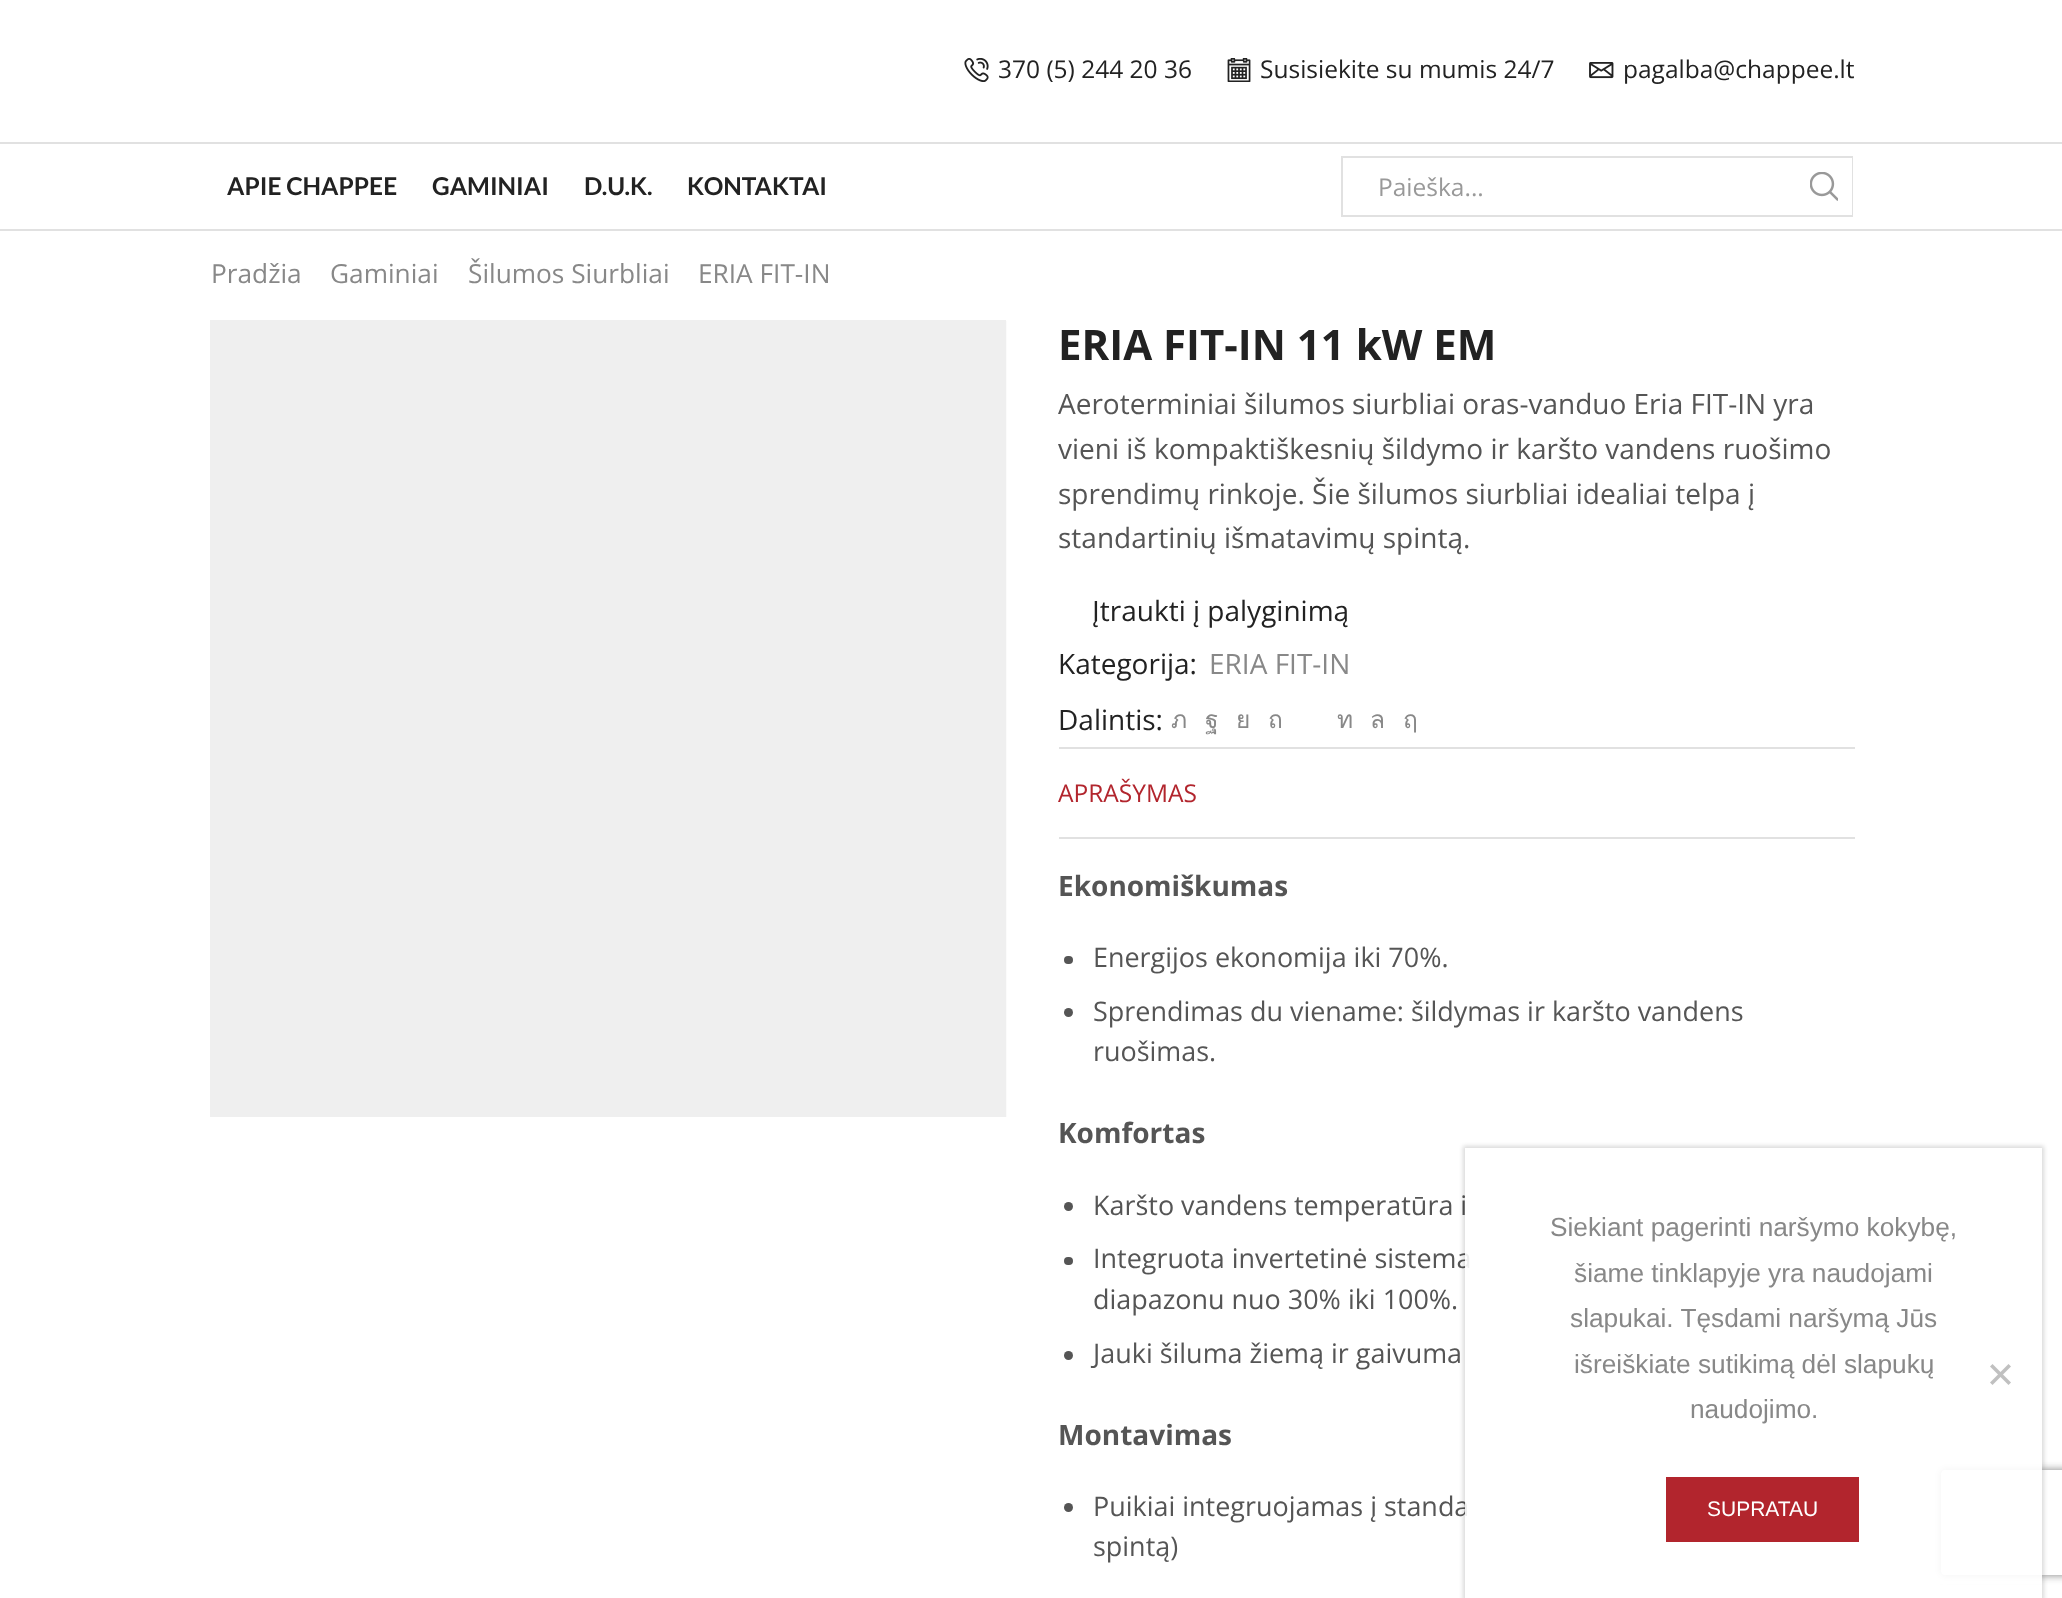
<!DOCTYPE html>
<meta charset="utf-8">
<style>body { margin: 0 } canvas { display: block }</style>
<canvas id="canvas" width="2062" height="1598"></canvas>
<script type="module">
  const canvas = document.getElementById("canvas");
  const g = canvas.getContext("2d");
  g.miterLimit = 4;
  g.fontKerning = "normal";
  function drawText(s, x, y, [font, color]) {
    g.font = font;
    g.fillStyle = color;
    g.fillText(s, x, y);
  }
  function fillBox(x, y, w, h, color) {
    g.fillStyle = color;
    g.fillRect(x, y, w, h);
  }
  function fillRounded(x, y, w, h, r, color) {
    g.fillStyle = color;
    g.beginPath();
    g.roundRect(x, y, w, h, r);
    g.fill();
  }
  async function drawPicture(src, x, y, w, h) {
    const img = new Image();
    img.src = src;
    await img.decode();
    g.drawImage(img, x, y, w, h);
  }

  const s1 = ["24.5px Open Sans", "#222222"];
  const s2 = ["bold 24.5px Lato", "#222222"];
  const s3 = ["24.5px Open Sans", "#999999"];
  const s4 = ["26.25px Open Sans", "#888888"];
  const s5 = ["bold 42px Open Sans", "#222222"];
  const s6 = ["28px Open Sans", "#555555"];
  const s7 = ["28px Open Sans", "#222222"];
  const s8 = ["28px Open Sans", "#888888"];
  const s9 = ["24.5px Loma", "#888888"];
  const s10 = ["24.5px Open Sans", "#B2252D"];
  const s11 = ["bold 28px Open Sans", "#555555"];
  const s12 = ["26.95px Open Sans", "#555555"];
  const s13 = ["26.25px Liberation Sans", "#888888"];
  const s14 = ["21px Liberation Sans", "#FFFFFF"];

  fillBox(0, 0, 2062, 1598, "#FFFFFF");
  fillBox(0, 142, 2062, 2, "#E1E1E1");
  await drawPicture("pic1.png", 964, 58, 25, 24);
  drawText("370 (5) 244 20 36", 998, 78, s1);
  await drawPicture("pic2.png", 1227, 58, 24, 24);
  drawText("Susisiekite su mumis 24/7", 1260, 78, s1);
  await drawPicture("pic3.png", 1589, 62, 25, 17);
  drawText("pagalba@chappee.lt", 1623, 78, s1);
  fillBox(0, 229, 2062, 2, "#E1E1E1");
  drawText("APIE CHAPPEE", 227, 195, s2);
  drawText("GAMINIAI", 432, 195, s2);
  drawText("D.U.K.", 584, 195, s2);
  drawText("KONTAKTAI", 687, 195, s2);
  g.strokeStyle = "#E1E1E1";
  g.lineWidth = 2;
  g.strokeRect(1342, 157, 510, 59);
  drawText("Paieška...", 1378, 196, s3);
  fillBox(1851, 158, 1, 57, "#FFFFFF");
  await drawPicture("pic4.png", 1810, 172, 28, 29);
  drawText("Pradžia", 211, 283, s4);
  drawText("Gaminiai", 330, 283, s4);
  drawText("Šilumos Siurbliai", 468, 283, s4);
  drawText("ERIA FIT-IN", 698, 283, s4);
  fillBox(210, 320, 796, 797, "#EFEFEF");
  fillBox(1006, 321, 1, 796, "#FBFBFB");
  drawText("ERIA FIT-IN 11 kW EM", 1058, 360, s5);
  drawText("Aeroterminiai šilumos siurbliai oras-vanduo Eria FIT-IN yra", 1058, 414, s6);
  drawText("vieni iš kompaktiškesnių šildymo ir karšto vandens ruošimo", 1058, 459, s6);
  drawText("sprendimų rinkoje. Šie šilumos siurbliai idealiai telpa į", 1058, 504, s6);
  drawText("standartinių išmatavimų spintą.", 1058, 548, s6);
  drawText("Įtraukti į palyginimą", 1092, 621, s7);
  drawText("Kategorija:", 1058, 674, s7);
  drawText("ERIA FIT-IN", 1209, 674, s8);
  drawText("Dalintis:", 1058, 730, s7);
  drawText("ภ", 1171, 728, s9);
  drawText("ฐ", 1205, 728, s9);
  drawText("ย", 1236, 728, s9);
  drawText("ถ", 1268, 728, s9);
  drawText("ท", 1337, 728, s9);
  drawText("ล", 1370, 728, s9);
  drawText("ฤ", 1403, 728, s9);
  fillBox(1059, 747, 796, 2, "#E1E1E1");
  fillBox(1059, 837, 796, 2, "#E1E1E1");
  drawText("APRAŠYMAS", 1058, 802, s10);
  drawText("Ekonomiškumas", 1058, 896, s11);
  fillRounded(1064, 956, 9, 8, 4, "#555555");
  drawText("Energijos ekonomija iki 70%.", 1093, 967, s12);
  g.beginPath();
  g.arc(1068.5, 1012.5, 4.5, 0, Math.PI * 2);
  g.fill();
  drawText("Sprendimas du viename: šildymas ir karšto vandens", 1093, 1021, s12);
  drawText("ruošimas.", 1093, 1061, s12);
  drawText("Komfortas", 1058, 1143, s11);
  g.beginPath();
  g.arc(1068.5, 1206.5, 4.5, 0, Math.PI * 2);
  g.fill();
  drawText("Karšto vandens temperatūra i", 1093, 1215, s12);
  fillRounded(1064, 1257, 9, 8, 4, "#555555");
  drawText("Integruota invertetinė sistema", 1093, 1268, s12);
  drawText("diapazonu nuo 30% iki 100%.", 1093, 1309, s12);
  g.beginPath();
  g.arc(1068.5, 1355.5, 4.5, 0, Math.PI * 2);
  g.fill();
  drawText("Jauki šiluma žiemą ir gaivuma", 1093, 1363, s12);
  drawText("Montavimas", 1058, 1445, s11);
  g.beginPath();
  g.arc(1068.5, 1507.5, 4.5, 0, Math.PI * 2);
  g.fill();
  drawText("Puikiai integruojamas į standa", 1093, 1516, s12);
  drawText("spintą)", 1093, 1556, s12);
  g.save();
  g.beginPath();
  g.moveTo(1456, 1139);
  g.lineTo(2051, 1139);
  g.lineTo(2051, 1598);
  g.lineTo(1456, 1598);
  g.closePath();
  g.moveTo(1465, 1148);
  g.lineTo(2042, 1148);
  g.lineTo(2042, 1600);
  g.lineTo(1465, 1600);
  g.closePath();
  g.clip("evenodd");
  g.fillStyle = "rgba(0, 0, 0, 0.15)";
  g.filter = "blur(2px)";
  g.beginPath();
  g.rect(1463, 1146, 581, 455);
  g.fill();
  g.filter = "none";
  g.restore();
  g.save();
  g.beginPath();
  g.moveTo(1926, 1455);
  g.lineTo(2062, 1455);
  g.lineTo(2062, 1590);
  g.lineTo(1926, 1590);
  g.closePath();
  g.moveTo(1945, 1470);
  g.lineTo(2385, 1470);
  g.bezierCurveTo(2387, 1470, 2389, 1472, 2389, 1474);
  g.lineTo(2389, 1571);
  g.bezierCurveTo(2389, 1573, 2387, 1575, 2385, 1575);
  g.lineTo(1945, 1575);
  g.bezierCurveTo(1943, 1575, 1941, 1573, 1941, 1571);
  g.lineTo(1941, 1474);
  g.bezierCurveTo(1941, 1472, 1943, 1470, 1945, 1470);
  g.closePath();
  g.clip("evenodd");
  g.fillStyle = "#808080";
  g.filter = "blur(4.5px)";
  g.beginPath();
  g.roundRect(1941, 1470, 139, 105, 4);
  g.fill();
  g.filter = "none";
  g.restore();
  fillBox(1465, 1196, 577, 388, "rgba(255, 255, 255, 0.9)");
  drawText("Siekiant pagerinti naršymo kokybę,", 1550, 1236, s13);
  drawText("šiame tinklapyje yra naudojami", 1574, 1282, s13);
  drawText("slapukai. Tęsdami naršymą Jūs", 1570, 1327, s13);
  drawText("išreiškiate sutikimą dėl slapukų", 1574, 1373, s13);
  drawText("naudojimo.", 1690, 1418, s13);
  g.fillStyle = "#C0C0C0";
  g.beginPath();
  g.moveTo(2008.5, 1364);
  g.lineTo(2011, 1366.5);
  g.lineTo(1992.5, 1385);
  g.lineTo(1990, 1382.5);
  g.closePath();
  g.fill();
  g.beginPath();
  g.moveTo(1990, 1366.5);
  g.lineTo(1992.5, 1364);
  g.lineTo(2011, 1382.5);
  g.lineTo(2008.5, 1385);
  g.closePath();
  g.fill();
  fillBox(1666, 1477, 193, 65, "#B2252D");
  drawText("SUPRATAU", 1707, 1516, s14);
</script>
